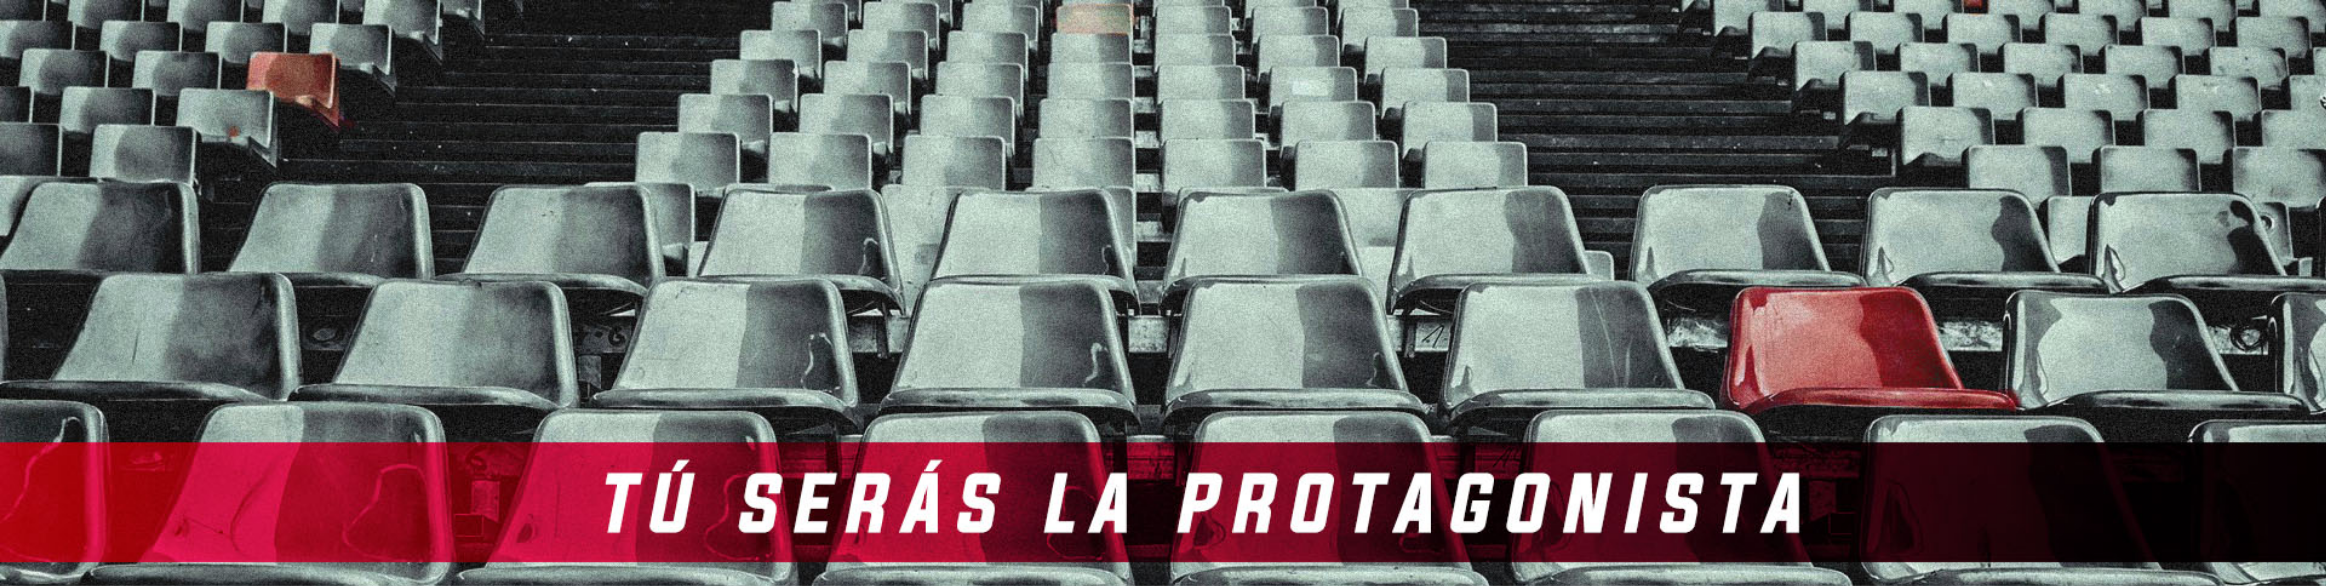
<!DOCTYPE html>
<meta charset="utf-8">
<style>body { margin: 0 } canvas { display: block }</style>
<canvas id="canvas" width="2326" height="586"></canvas>
<script type="module">
  const canvas = document.getElementById("canvas");
  const g = canvas.getContext("2d");
  g.miterLimit = 4;
  g.fontKerning = "normal";
  function fillBox(x, y, w, h, color) {
    g.fillStyle = color;
    g.fillRect(x, y, w, h);
  }
  async function drawPicture(src, x, y, w, h) {
    const img = new Image();
    img.src = src;
    await img.decode();
    g.drawImage(img, x, y, w, h);
  }

  fillBox(0, 0, 2326, 586, "#FFFFFF");
  await drawPicture("pic1.png", 0, 0, 2326, 586);
</script>
